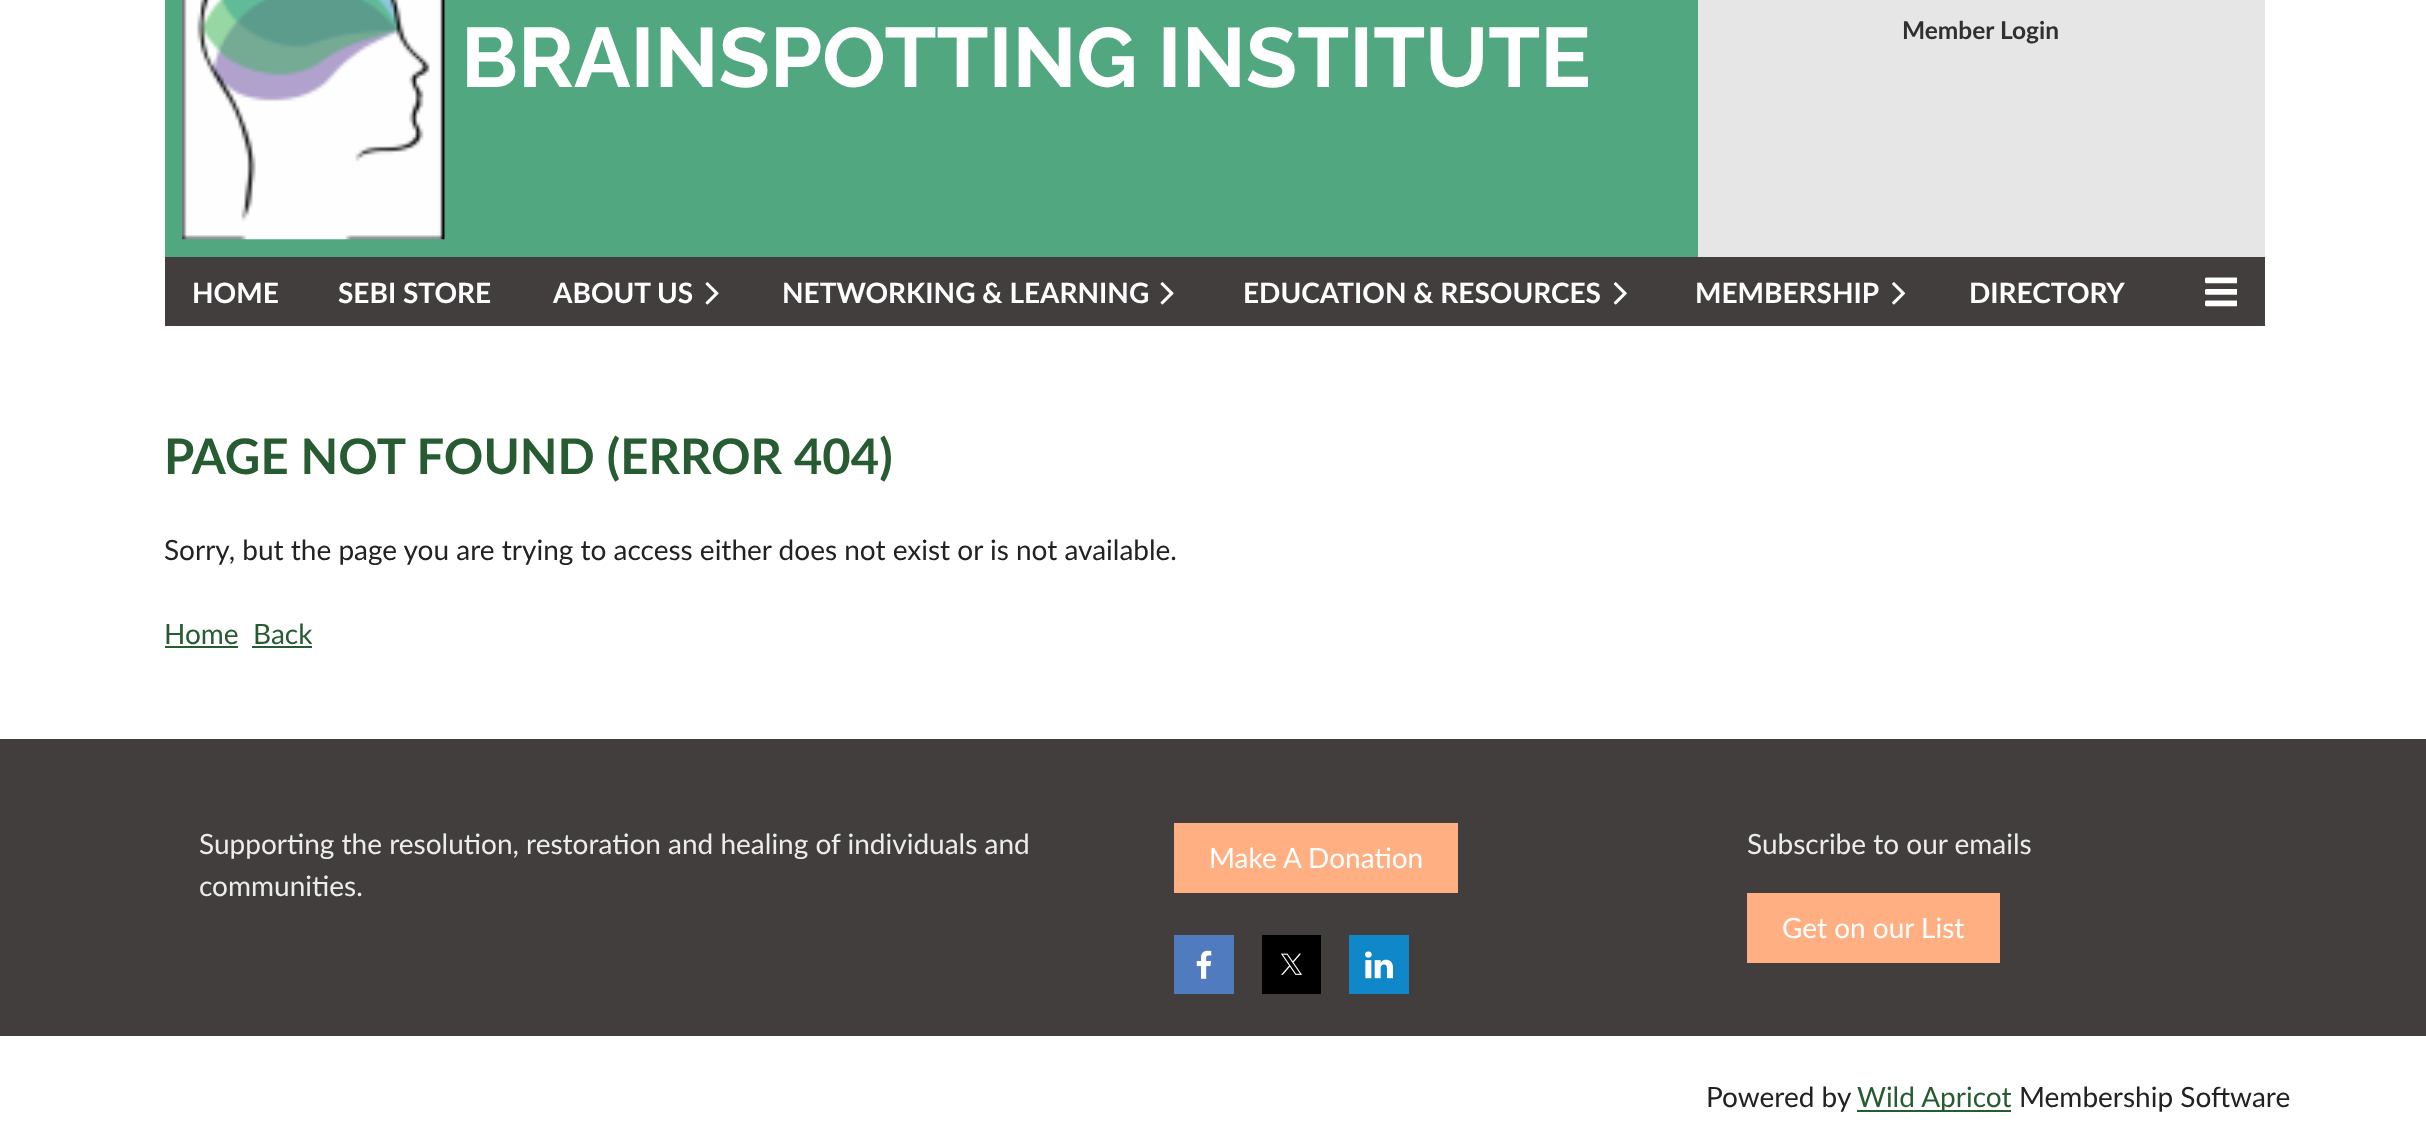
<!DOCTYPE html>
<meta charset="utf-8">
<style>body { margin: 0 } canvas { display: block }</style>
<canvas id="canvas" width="2426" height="1140"></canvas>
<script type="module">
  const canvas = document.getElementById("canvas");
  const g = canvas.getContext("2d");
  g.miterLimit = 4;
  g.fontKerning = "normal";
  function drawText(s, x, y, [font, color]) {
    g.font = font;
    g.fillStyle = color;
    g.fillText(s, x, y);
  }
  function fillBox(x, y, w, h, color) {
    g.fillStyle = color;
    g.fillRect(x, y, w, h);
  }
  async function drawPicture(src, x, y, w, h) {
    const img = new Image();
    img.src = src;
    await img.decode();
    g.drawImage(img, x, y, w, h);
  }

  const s1 = ["bold 84px Raleway", "#FFFFFF"];
  const s2 = ["bold 24.5px Lato", "#303030"];
  const s3 = ["bold 28px Lato", "#FFFFFF"];
  const s4 = ["bold 49px Lato", "#275C32"];
  const s5 = ["28px Lato", "#222222"];
  const s6 = ["28px Lato", "#275C32"];
  const s7 = ["28px Lato", "#ECECEC"];
  const s8 = ["28px Lato", "#FFFFFF"];

  fillBox(0, 0, 2426, 1140, "#FFFFFF");
  fillBox(165, 0, 1533, 257, "#51A780");
  await drawPicture("pic1.png", 182, 0, 263, 240);
  drawText("BRAINSPOTTING INSTITUTE", 461, 87, s1);
  fillBox(1698, 0, 567, 257, "#E6E6E6");
  drawText("Member Login", 1902, 39, s2);
  fillBox(165, 257, 2100, 69, "#423E3E");
  drawText("HOME", 192, 303, s3);
  drawText("SEBI STORE", 338, 303, s3);
  drawText("ABOUT US", 553, 303, s3);
  await drawPicture("pic2.png", 705, 282, 14, 23);
  drawText("NETWORKING & LEARNING", 782, 303, s3);
  await drawPicture("pic2.png", 1160, 282, 14, 23);
  drawText("EDUCATION & RESOURCES", 1243, 303, s3);
  await drawPicture("pic3.png", 1613, 282, 14, 23);
  drawText("MEMBERSHIP", 1695, 303, s3);
  await drawPicture("pic4.png", 1892, 282, 14, 23);
  drawText("DIRECTORY", 1969, 303, s3);
  await drawPicture("pic5.png", 2205, 277, 32, 30);
  drawText("PAGE NOT FOUND (ERROR 404)", 164, 474, s4);
  drawText("Sorry, but the page you are trying to access either does not exist or is not available.", 164, 560, s5);
  drawText("Home", 164, 644, s6);
  fillBox(165, 646, 73, 2, "#275C32");
  drawText("Back", 253, 644, s6);
  fillBox(252, 646, 60, 2, "#275C32");
  fillBox(0, 739, 2426, 297, "#423E3E");
  drawText("Supporting the resolution, restoration and healing of individuals and", 199, 854, s7);
  g.save();
  g.beginPath();
  g.rect(200, 823, 904, 84);
  g.clip();
  drawText("communities.", 199, 896, s7);
  g.restore();
  fillBox(1174, 823, 284, 70, "#FFAF82");
  drawText("Make A Donation", 1209, 868, s8);
  fillBox(1174, 935, 60, 59, "#507BBE");
  await drawPicture("pic6.png", 1196, 950, 16, 29);
  fillBox(1262, 935, 59, 59, "#000000");
  await drawPicture("pic7.png", 1280, 953, 22, 22);
  fillBox(1349, 935, 60, 59, "#1087C9");
  await drawPicture("pic8.png", 1365, 951, 28, 28);
  drawText("Subscribe to our emails", 1747, 854, s7);
  fillBox(1747, 893, 253, 70, "#FFAF82");
  drawText("Get on our List", 1782, 938, s8);
  drawText("Powered by", 1706, 1107, s5);
  fillBox(1857, 1110, 154, 2, "#275C32");
  drawText("Wild Apricot", 1857, 1107, s6);
  drawText("Membership Software", 2019, 1107, s5);
</script>
